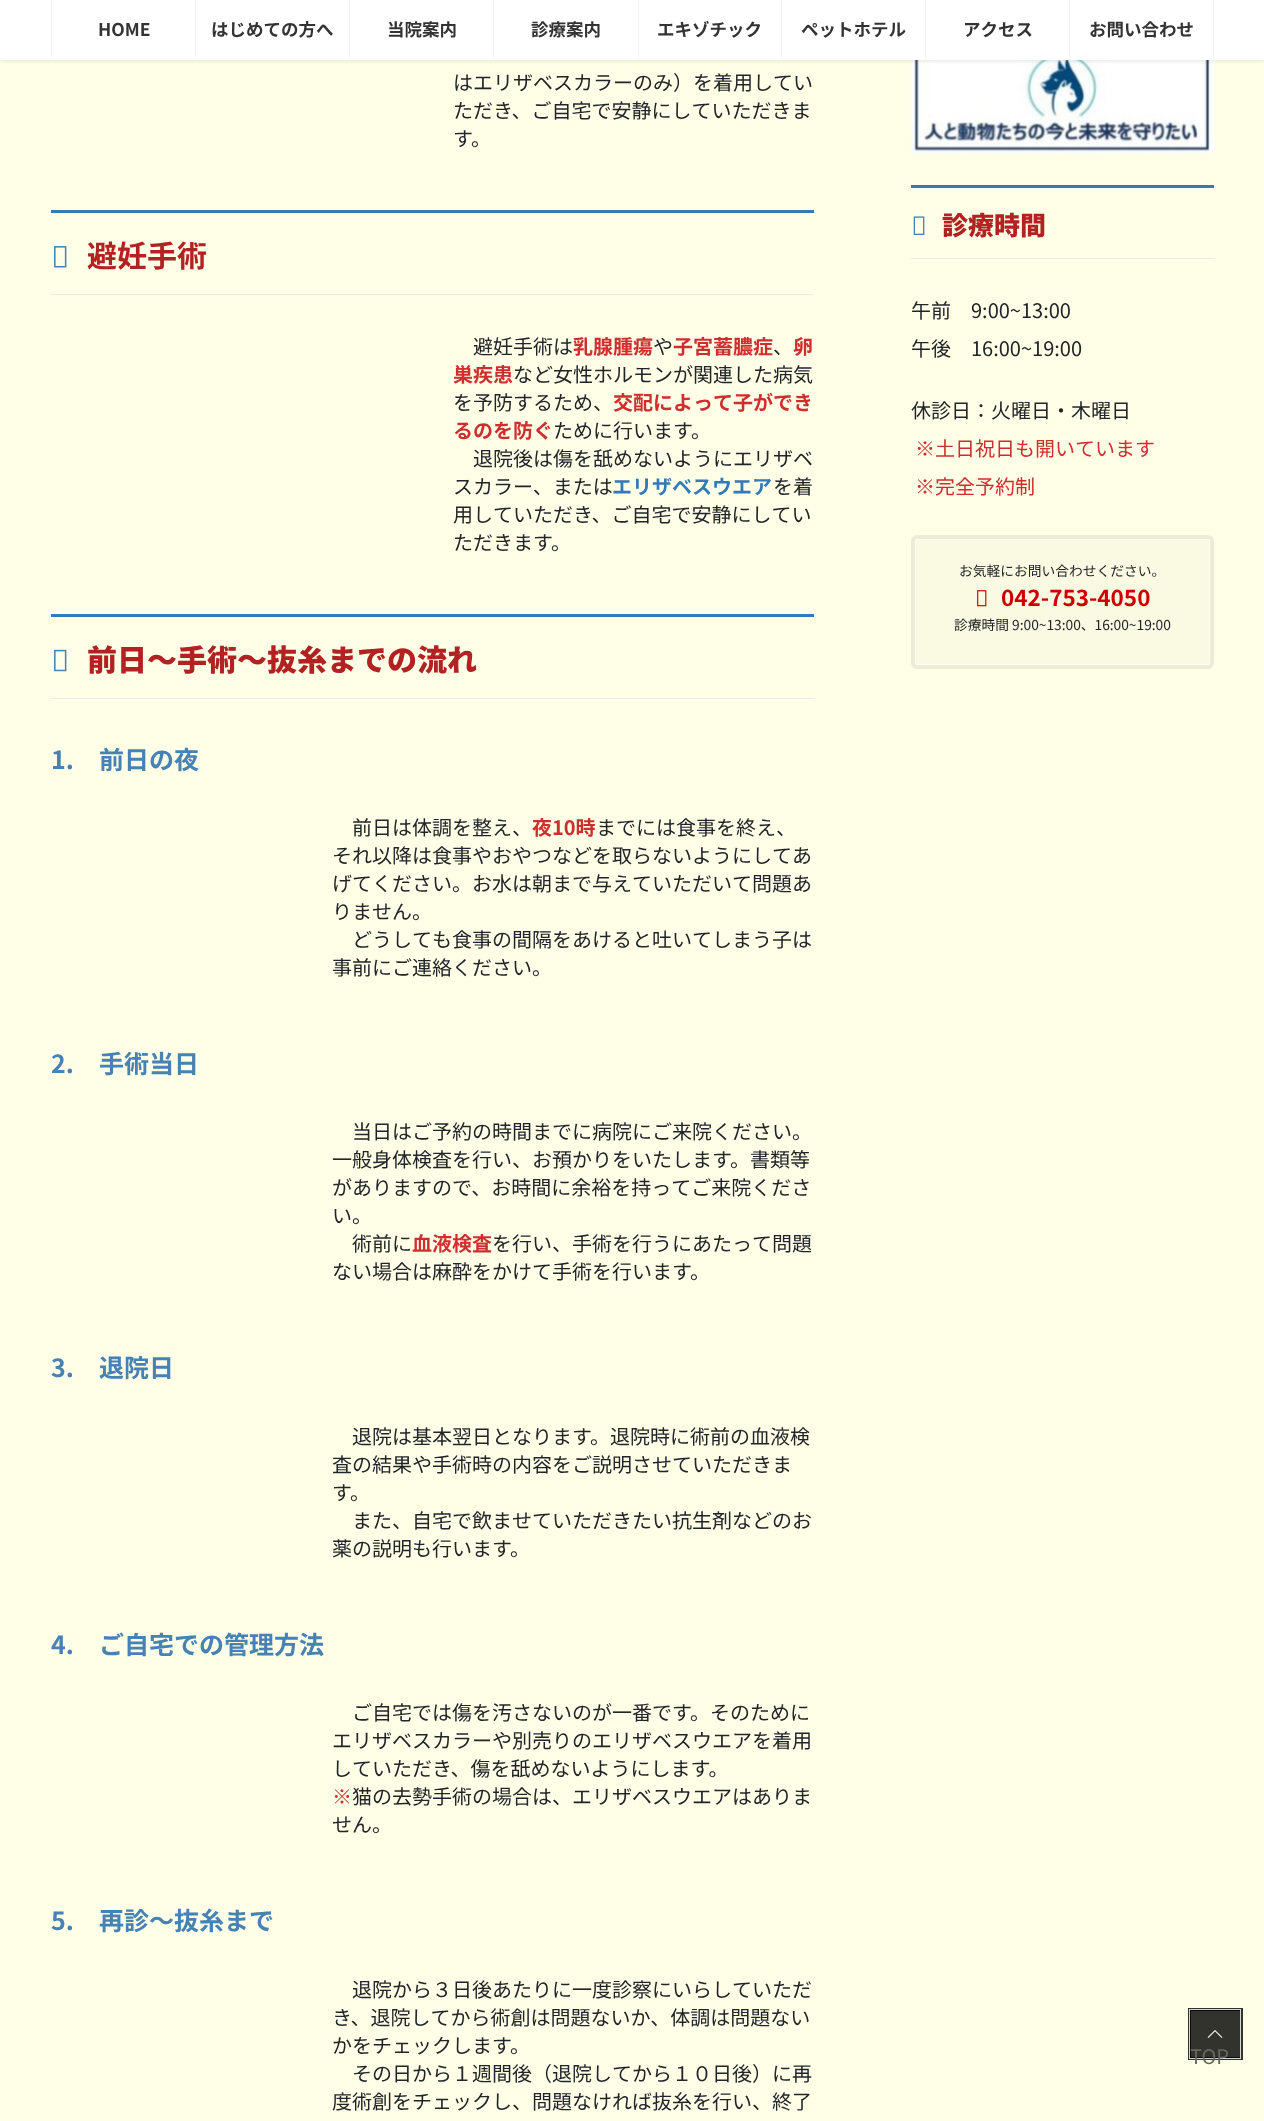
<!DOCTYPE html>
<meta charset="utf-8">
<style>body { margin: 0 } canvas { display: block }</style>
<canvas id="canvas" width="1264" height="2121"></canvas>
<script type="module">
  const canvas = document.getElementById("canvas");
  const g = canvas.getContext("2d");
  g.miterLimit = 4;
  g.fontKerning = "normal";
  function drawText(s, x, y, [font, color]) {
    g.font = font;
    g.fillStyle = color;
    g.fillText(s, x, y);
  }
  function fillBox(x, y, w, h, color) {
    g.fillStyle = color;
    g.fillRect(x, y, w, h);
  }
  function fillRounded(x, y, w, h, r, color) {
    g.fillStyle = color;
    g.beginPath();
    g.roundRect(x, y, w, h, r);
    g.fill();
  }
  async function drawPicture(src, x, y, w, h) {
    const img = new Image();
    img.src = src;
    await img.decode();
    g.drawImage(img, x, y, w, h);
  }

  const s1 = ["bold 17.5px Noto Sans JP", "#333333"];
  const s2 = ["20px Noto Sans JP", "#212529"];
  const s3 = ["bold 30px Noto Sans JP", "#B22222"];
  const s4 = ["bold 20px Noto Sans JP", "#CF2E2E"];
  const s5 = ["bold 20px Noto Sans JP", "#337AB7"];
  const s6 = ["900 30px Noto Sans JP", "#B22222"];
  const s7 = ["bold 25px Noto Sans JP", "#4682B4"];
  const s8 = ["20px Noto Sans JP", "#CF2E2E"];
  const s9 = ["900 26px Noto Sans JP", "#B22222"];
  const s10 = ["13.75px Noto Sans JP", "#212529"];
  const s11 = ["bold 22.5px Noto Sans JP", "#CC0000"];
  const s12 = ["20px Noto Sans JP", "#67675F"];

  fillBox(0, 0, 1264, 2121, "#FFFFE7");
  await drawPicture("pic3.png", 911, 60, 303, 94);
  g.fillStyle = "rgba(0, 0, 0, 0.1)";
  g.filter = "blur(2px)";
  g.beginPath();
  g.rect(0, 1, 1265, 60);
  g.fill();
  g.filter = "none";
  fillBox(0, 0, 1264, 60, "#FFFFFF");
  fillBox(51, 0, 1, 60, "#F5F5F5");
  drawText("HOME", 98, 36, s1);
  fillBox(195, 0, 1, 60, "#F5F5F5");
  drawText("はじめての方へ", 211, 36, s1);
  fillBox(349, 0, 1, 60, "#F5F5F5");
  drawText("当院案内", 387, 36, s1);
  fillBox(493, 0, 1, 60, "#F5F5F5");
  drawText("診療案内", 531, 36, s1);
  fillBox(638, 0, 1, 60, "#F5F5F5");
  drawText("エキゾチック", 657, 36, s1);
  fillBox(781, 0, 1, 60, "#F5F5F5");
  drawText("ペットホテル", 801, 36, s1);
  fillBox(925, 0, 1, 60, "#F5F5F5");
  drawText("アクセス", 963, 36, s1);
  fillBox(1213, 0, 1, 60, "#F5F5F5");
  fillBox(1069, 0, 1, 60, "#F5F5F5");
  drawText("お問い合わせ", 1089, 36, s1);
  drawText("はエリザベスカラーのみ）を着用してい", 453, 90, s2);
  drawText("ただき、ご自宅で安静にしていただきま", 453, 118, s2);
  drawText("す。", 453, 146, s2);
  fillBox(51, 210, 763, 3, "#337AB7");
  fillBox(51, 294, 763, 1, "#E9E9E9");
  await drawPicture("pic1.png", 54, 246, 13, 22);
  drawText("避妊手術", 87, 267, s3);
  drawText("避妊手術は", 473, 354, s2);
  drawText("乳腺腫瘍", 573, 354, s4);
  drawText("や", 653, 354, s2);
  drawText("子宮蓄膿症", 673, 354, s4);
  drawText("、", 773, 354, s2);
  drawText("卵", 793, 354, s4);
  drawText("巣疾患", 453, 382, s4);
  drawText("など女性ホルモンが関連した病気", 513, 382, s2);
  drawText("を予防するため、", 453, 410, s2);
  drawText("交配によって子ができ", 613, 410, s4);
  drawText("るのを防ぐ", 453, 438, s4);
  drawText("ために行います。", 553, 438, s2);
  drawText("退院後は傷を舐めないようにエリザベ", 473, 466, s2);
  drawText("スカラー、または", 453, 494, s2);
  drawText("エリザベスウエア", 612, 494, s5);
  drawText("を着", 773, 494, s2);
  drawText("用していただき、ご自宅で安静にしてい", 453, 522, s2);
  drawText("ただきます。", 453, 550, s2);
  fillBox(51, 614, 763, 3, "#337AB7");
  fillBox(51, 698, 763, 1, "#E9E9E9");
  await drawPicture("pic2.png", 54, 649, 13, 23);
  drawText("前日～手術～抜糸までの流れ", 87, 671, s6);
  drawText("1.　前日の夜", 51, 769, s7);
  drawText("前日は体調を整え、", 352, 835, s2);
  drawText("夜10時", 532, 835, s4);
  drawText("までには食事を終え、", 596, 835, s2);
  drawText("それ以降は食事やおやつなどを取らないようにしてあ", 332, 863, s2);
  drawText("げてください。お水は朝まで与えていただいて問題あ", 332, 891, s2);
  drawText("りません。", 332, 919, s2);
  drawText("どうしても食事の間隔をあけると吐いてしまう子は", 352, 947, s2);
  drawText("事前にご連絡ください。", 332, 975, s2);
  drawText("2.　手術当日", 51, 1073, s7);
  drawText("当日はご予約の時間までに病院にご来院ください。", 352, 1139, s2);
  drawText("一般身体検査を行い、お預かりをいたします。書類等", 332, 1167, s2);
  drawText("がありますので、お時間に余裕を持ってご来院くださ", 332, 1195, s2);
  drawText("い。", 332, 1223, s2);
  drawText("術前に", 352, 1251, s2);
  drawText("血液検査", 412, 1251, s4);
  drawText("を行い、手術を行うにあたって問題", 492, 1251, s2);
  drawText("ない場合は麻酔をかけて手術を行います。", 332, 1279, s2);
  drawText("3.　退院日", 51, 1377, s7);
  drawText("退院は基本翌日となります。退院時に術前の血液検", 352, 1444, s2);
  drawText("査の結果や手術時の内容をご説明させていただきま", 332, 1472, s2);
  drawText("す。", 332, 1500, s2);
  drawText("また、自宅で飲ませていただきたい抗生剤などのお", 352, 1528, s2);
  drawText("薬の説明も行います。", 332, 1556, s2);
  drawText("4.　ご自宅での管理方法", 51, 1654, s7);
  drawText("ご自宅では傷を汚さないのが一番です。そのために", 352, 1720, s2);
  drawText("エリザベスカラーや別売りのエリザベスウエアを着用", 332, 1748, s2);
  drawText("していただき、傷を舐めないようにします。", 332, 1776, s2);
  drawText("※", 332, 1804, s8);
  drawText("猫の去勢手術の場合は、エリザベスウエアはありま", 352, 1804, s2);
  drawText("せん。", 332, 1832, s2);
  drawText("5.　再診～抜糸まで", 51, 1930, s7);
  drawText("退院から３日後あたりに一度診察にいらしていただ", 352, 1997, s2);
  drawText("き、退院してから術創は問題ないか、体調は問題ない", 332, 2025, s2);
  drawText("かをチェックします。", 332, 2053, s2);
  drawText("その日から１週間後（退院してから１０日後）に再", 352, 2081, s2);
  drawText("度術創をチェックし、問題なければ抜糸を行い、終了", 332, 2109, s2);
  fillBox(911, 185, 303, 3, "#337AB7");
  fillBox(911, 258, 303, 1, "#E9E9E9");
  await drawPicture("pic4.png", 913, 216, 12, 19);
  drawText("診療時間", 942, 235, s9);
  drawText("午前　9:00~13:00", 911, 318, s2);
  drawText("午後　16:00~19:00", 911, 356, s2);
  drawText("休診日：火曜日・木曜日", 911, 418, s2);
  drawText("※土日祝日も開いています", 915, 456, s8);
  drawText("※完全予約制", 915, 494, s8);
  g.beginPath();
  g.roundRect(913, 537, 299, 130, 4);
  g.strokeStyle = "#EDEDD7";
  g.lineWidth = 4;
  g.stroke();
  fillRounded(915, 539, 295, 126, 2.5, "#FAFAE2");
  g.fillStyle = "#FEFEF9";
  g.beginPath();
  g.moveTo(918, 539);
  g.bezierCurveTo(916, 539, 915, 540, 915, 542);
  g.lineTo(915, 662);
  g.bezierCurveTo(915, 664, 916, 665, 918, 665);
  g.lineTo(1208, 665);
  g.bezierCurveTo(1209, 665, 1210, 664, 1210, 662);
  g.lineTo(1210, 542);
  g.bezierCurveTo(1210, 540, 1209, 539, 1208, 539);
  g.closePath();
  g.moveTo(916, 540);
  g.lineTo(916, 664);
  g.lineTo(1209, 664);
  g.lineTo(1209, 540);
  g.closePath();
  g.fill("evenodd");
  drawText("お気軽にお問い合わせください。", 959, 576, s10);
  await drawPicture("pic5.png", 977, 590, 10, 17);
  drawText("042-753-4050", 1001, 606, s11);
  drawText("診療時間 9:00~13:00、16:00~19:00", 954, 630, s10);
  g.strokeStyle = "#33332E";
  g.lineWidth = 3;
  g.strokeRect(1189.5, 2009.5, 52, 49);
  g.strokeStyle = "#D6D6D5";
  g.lineWidth = 1;
  g.strokeRect(1189.5, 2009.5, 51, 49);
  fillBox(1190, 2010, 50, 48, "rgba(0, 0, 0, 0.8)");
  await drawPicture("pic6.png", 1207, 2030, 16, 8);
  drawText("TOP", 1190, 2064, s12);
</script>
